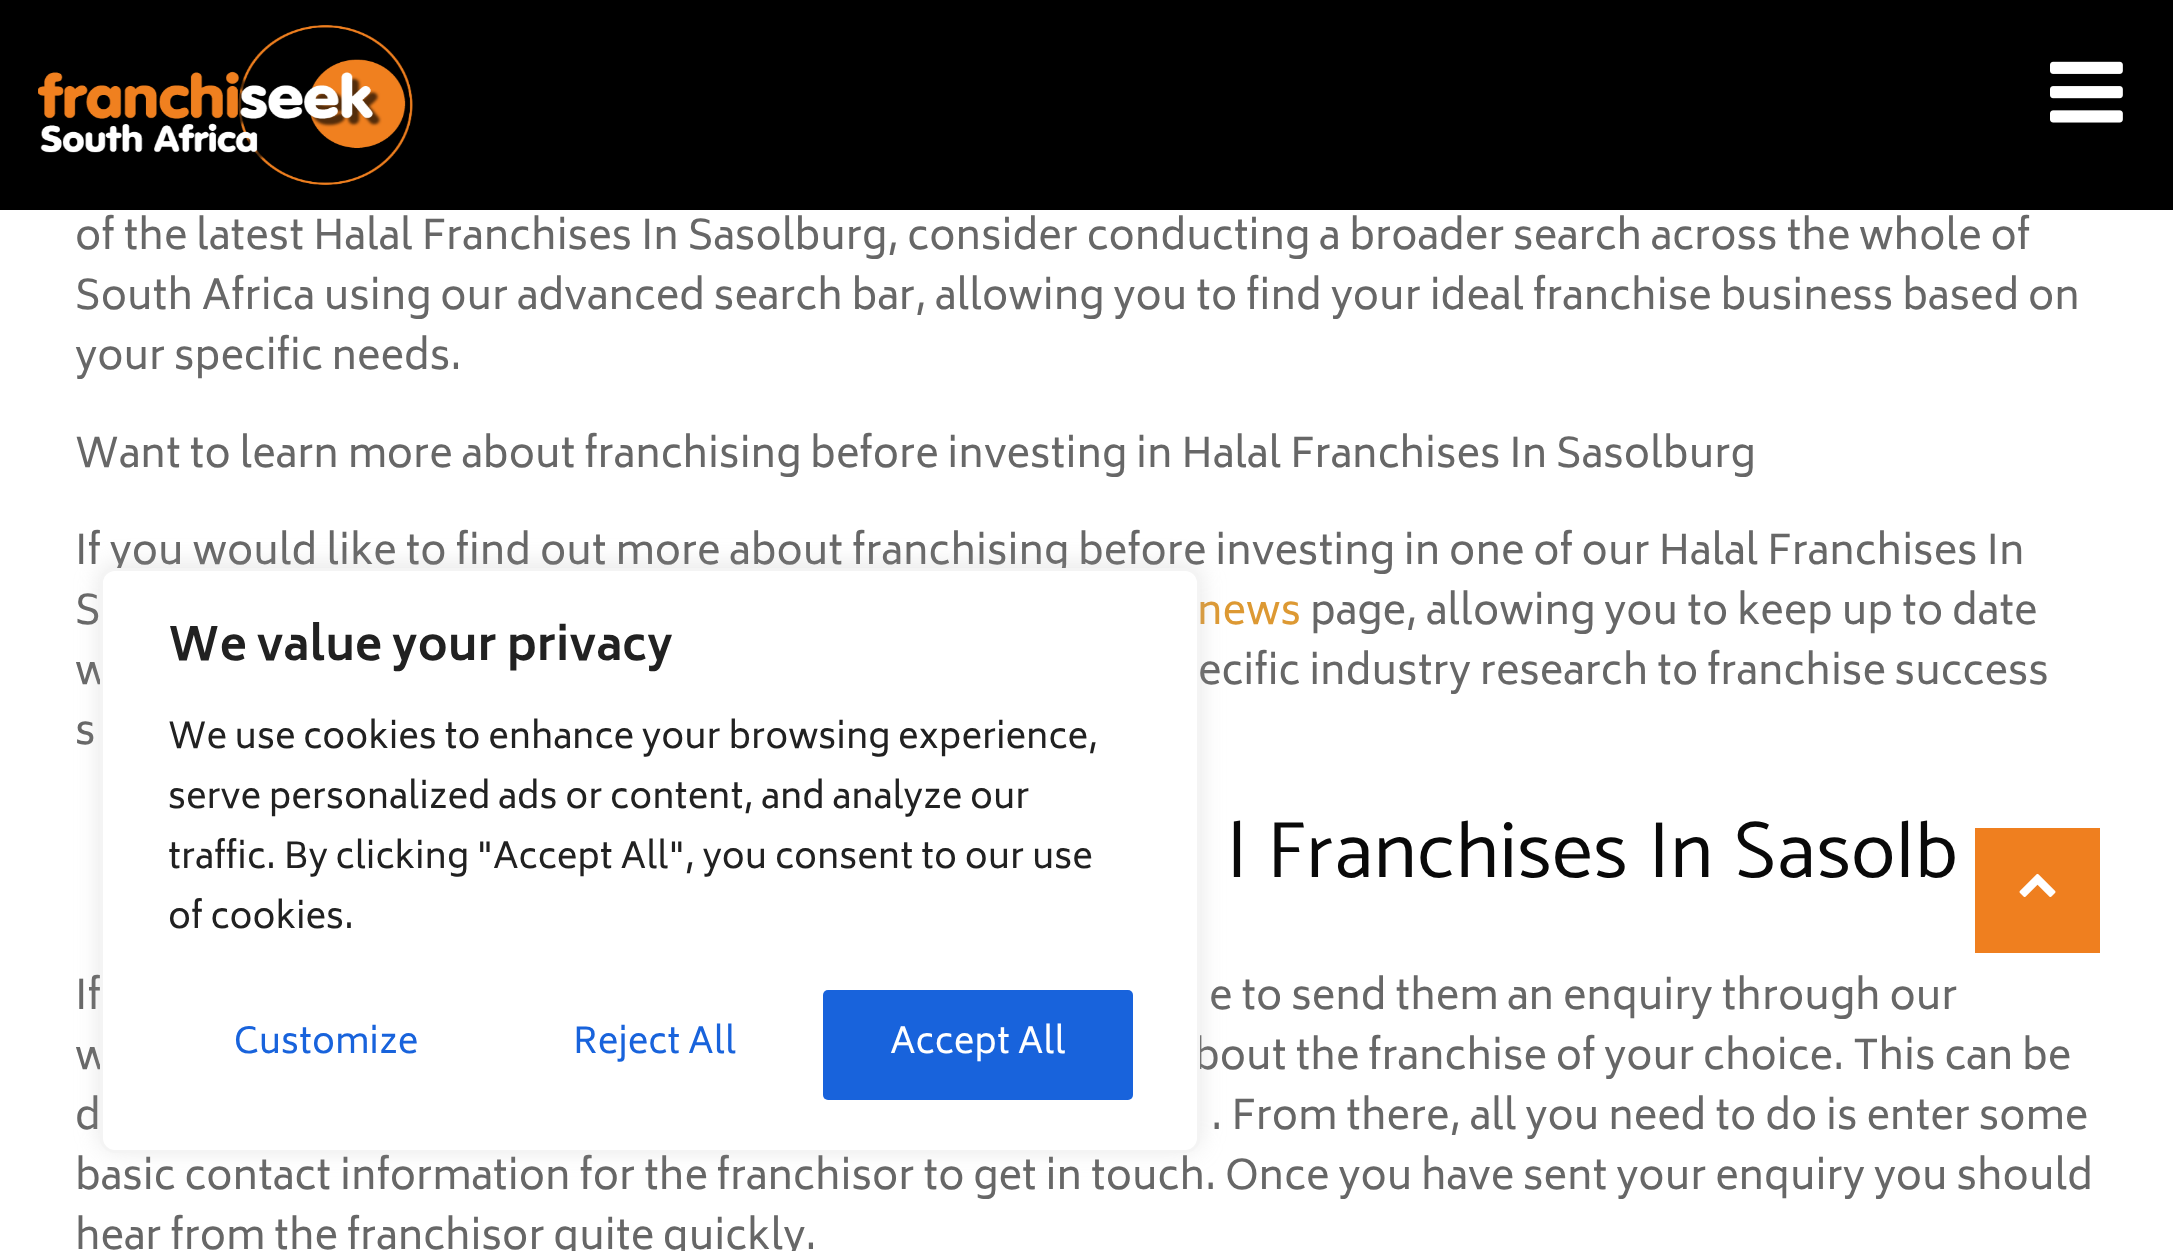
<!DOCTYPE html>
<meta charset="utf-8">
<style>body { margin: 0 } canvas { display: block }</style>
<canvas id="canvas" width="2173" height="1251"></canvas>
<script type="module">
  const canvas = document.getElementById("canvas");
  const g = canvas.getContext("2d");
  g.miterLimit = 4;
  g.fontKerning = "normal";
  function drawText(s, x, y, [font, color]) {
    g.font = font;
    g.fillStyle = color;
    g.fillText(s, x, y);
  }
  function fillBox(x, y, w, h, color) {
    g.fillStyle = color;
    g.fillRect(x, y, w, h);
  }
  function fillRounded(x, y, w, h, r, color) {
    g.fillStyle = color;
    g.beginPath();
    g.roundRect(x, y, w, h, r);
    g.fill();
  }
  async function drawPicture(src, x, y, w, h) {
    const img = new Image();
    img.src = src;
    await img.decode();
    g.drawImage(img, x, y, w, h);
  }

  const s1 = ["40px Biryani", "#676767"];
  const s2 = ["40px Biryani", "#DD9933"];
  const s3 = ["80px Catamaran", "#090909"];
  const s4 = ["bold 45px Biryani", "#212121"];
  const s5 = ["35px Biryani", "#212121"];
  const s6 = ["35px Biryani", "#1863DC"];
  const s7 = ["35px Biryani", "#FFFFFF"];

  fillBox(0, 0, 2173, 1251, "#FFFFFF");
  fillBox(0, 0, 2173, 210, "#000000");
  await drawPicture("pic1.png", 38, 25, 375, 160);
  await drawPicture("pic2.png", 2050, 61, 73, 62);
  drawText("of the latest Halal Franchises In Sasolburg, consider conducting a broader search across the whole of", 75, 249, s1);
  drawText("South Africa using our advanced search bar, allowing you to find your ideal franchise business based on", 75, 309, s1);
  drawText("your specific needs.", 75, 369, s1);
  drawText("Want to learn more about franchising before investing in Halal Franchises In Sasolburg", 75, 467, s1);
  drawText("If you would like to find out more about franchising before investing in one of our Halal Franchises In", 75, 564, s1);
  drawText("S", 75, 624, s1);
  drawText("news", 1197, 624, s2);
  drawText("page, allowing you to keep up to date", 1310, 624, s1);
  drawText("w", 75, 684, s1);
  drawText("ecific industry research to franchise success", 1198, 684, s1);
  drawText("s", 75, 744, s1);
  g.letterSpacing = "1.25px";
  drawText("l Franchises In Sasolb", 1228, 877, s3);
  g.letterSpacing = "0px";
  drawText("If", 75, 1009, s1);
  drawText("e to send them an enquiry through our", 1209, 1009, s1);
  drawText("w", 75, 1069, s1);
  drawText("bout the franchise of your choice. This can be", 1194, 1069, s1);
  drawText("d", 75, 1129, s1);
  drawText(". From there, all you need to do is enter some", 1211, 1129, s1);
  drawText("basic contact information for the franchisor to get in touch. Once you have sent your enquiry you should", 75, 1189, s1);
  drawText("hear from the franchisor quite quickly.", 75, 1249, s1);
  g.fillStyle = "rgba(172, 171, 171, 0.3)";
  g.filter = "blur(12.5px)";
  g.beginPath();
  g.roundRect(100, 565, 1100, 585, 15);
  g.fill();
  g.filter = "none";
  g.fillStyle = "#FFFFFF";
  g.beginPath();
  g.roundRect(101.5, 569.5, 1097, 582, 13.5);
  g.fill();
  g.strokeStyle = "#F4F4F4";
  g.lineWidth = 3;
  g.stroke();
  drawText("We value your privacy", 168, 660, s4);
  drawText("We use cookies to enhance your browsing experience,", 168, 748, s5);
  drawText("serve personalized ads or content, and analyze our", 168, 808, s5);
  drawText("traffic. By clicking \"Accept All\", you consent to our use", 168, 868, s5);
  drawText("of cookies.", 168, 928, s5);
  drawText("Customize", 234, 1053, s6);
  drawText("Reject All", 573, 1053, s6);
  fillRounded(823, 990, 310, 110, 5, "#1863DC");
  drawText("Accept All", 890, 1053, s7);
  fillBox(1975, 828, 125, 125, "#EF7F1F");
  await drawPicture("pic3.png", 2019, 873, 37, 24);
</script>
